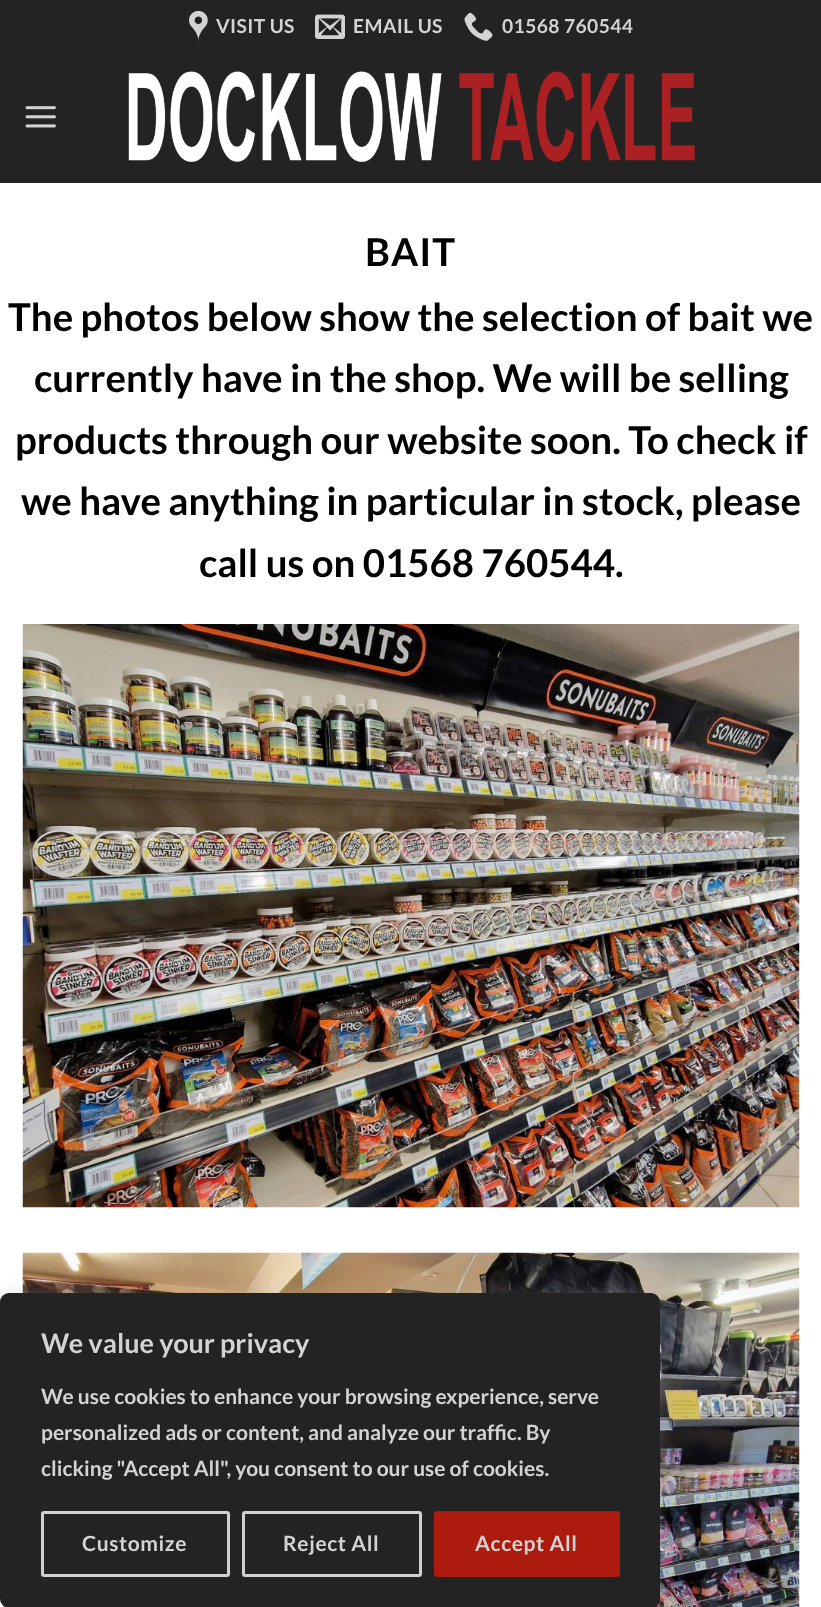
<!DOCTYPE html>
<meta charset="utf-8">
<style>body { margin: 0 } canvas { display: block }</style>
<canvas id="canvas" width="821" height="1607"></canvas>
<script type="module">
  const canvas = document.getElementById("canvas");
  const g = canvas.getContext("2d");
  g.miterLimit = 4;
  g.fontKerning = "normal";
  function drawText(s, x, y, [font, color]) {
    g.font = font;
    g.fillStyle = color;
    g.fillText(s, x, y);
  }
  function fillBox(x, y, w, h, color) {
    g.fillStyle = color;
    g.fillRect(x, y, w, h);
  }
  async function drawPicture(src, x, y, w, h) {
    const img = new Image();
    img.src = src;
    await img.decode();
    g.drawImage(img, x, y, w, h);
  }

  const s1 = ["bold 19.25px Lato", "#D3D3D3"];
  const s2 = ["bold 38.4px Lato", "#000000"];
  const s3 = ["bold 27px Lato", "#D3D3D3"];
  const s4 = ["bold 21px Lato", "#D3D3D3"];

  fillBox(0, 0, 821, 1607, "#FFFFFF");
  fillBox(0, 0, 821, 183, "#232323");
  await drawPicture("pic1.png", 189, 10, 19, 31);
  g.letterSpacing = "0.4px";
  drawText("VISIT US", 216, 33, s1);
  await drawPicture("pic2.png", 315, 14, 30, 25);
  drawText("EMAIL US", 353, 33, s1);
  await drawPicture("pic3.png", 464, 12, 29, 29);
  drawText("01568 760544", 502, 33, s1);
  await drawPicture("pic4.png", 25, 106, 31, 22);
  await drawPicture("pic5.png", 128, 71, 567, 91);
  g.letterSpacing = "1px";
  drawText("BAIT", 365, 266, s2);
  g.letterSpacing = "0px";
  drawText("The photos below show the selection of bait we", 8, 331, s2);
  drawText("currently have in the shop. We will be selling", 34, 392, s2);
  drawText("products through our website soon. To check if", 15, 454, s2);
  drawText("we have anything in particular in stock, please", 21, 515, s2);
  drawText("call us on 01568 760544.", 199, 577, s2);
  await drawPicture("pic6.png", 22, 624, 778, 584);
  await drawPicture("pic7.png", 22, 1252, 778, 355);
  g.fillStyle = "rgba(172, 171, 171, 0.3)";
  g.filter = "blur(7.5px)";
  g.beginPath();
  g.roundRect(0, 1292, 660, 315, 9);
  g.fill();
  g.filter = "none";
  g.fillStyle = "#232323";
  g.beginPath();
  g.roundRect(1, 1294, 658, 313, 8);
  g.fill();
  g.strokeStyle = "#232323";
  g.lineWidth = 2;
  g.stroke();
  drawText("We value your privacy", 41, 1353, s3);
  drawText("We use cookies to enhance your browsing experience, serve", 41, 1404, s4);
  drawText("personalized ads or content, and analyze our traffic. By", 41, 1440, s4);
  drawText("clicking \"Accept All\", you consent to our use of cookies.", 41, 1476, s4);
  g.beginPath();
  g.roundRect(42.5, 1512.5, 186, 63, 1.5);
  g.strokeStyle = "#D0D0D0";
  g.lineWidth = 3;
  g.stroke();
  g.letterSpacing = "0.6px";
  drawText("Customize", 82, 1551, s4);
  g.beginPath();
  g.roundRect(243.5, 1512.5, 177, 63, 1.5);
  g.stroke();
  drawText("Reject All", 283, 1551, s4);
  g.fillStyle = "#AD1B0E";
  g.beginPath();
  g.roundRect(435.5, 1512.5, 183, 63, 1.5);
  g.fill();
  g.strokeStyle = "#AD1B0E";
  g.stroke();
  drawText("Accept All", 475, 1551, s4);
</script>
